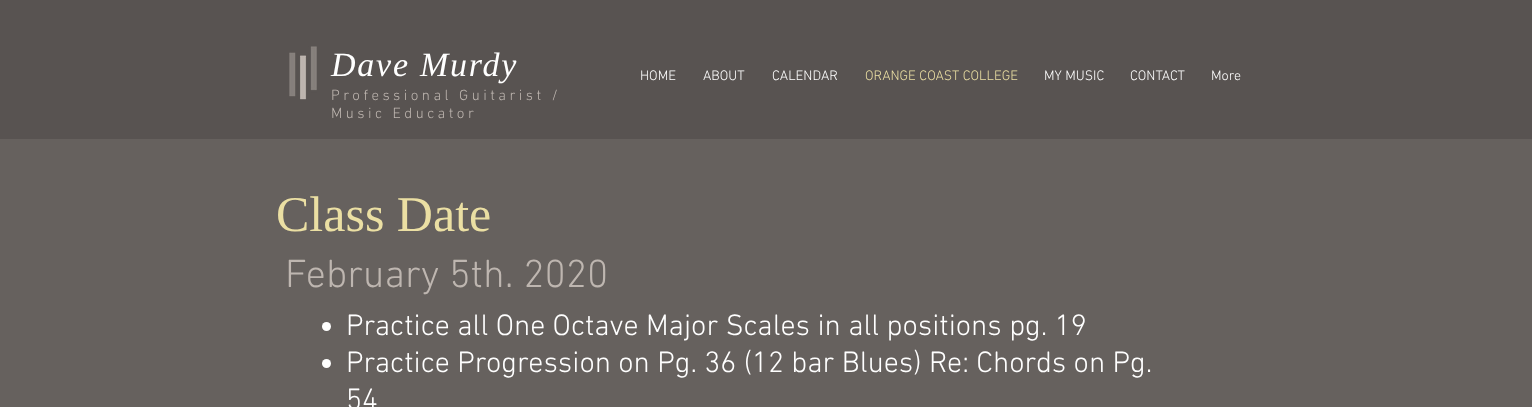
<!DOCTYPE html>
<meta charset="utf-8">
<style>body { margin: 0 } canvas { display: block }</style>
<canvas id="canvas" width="1532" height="407"></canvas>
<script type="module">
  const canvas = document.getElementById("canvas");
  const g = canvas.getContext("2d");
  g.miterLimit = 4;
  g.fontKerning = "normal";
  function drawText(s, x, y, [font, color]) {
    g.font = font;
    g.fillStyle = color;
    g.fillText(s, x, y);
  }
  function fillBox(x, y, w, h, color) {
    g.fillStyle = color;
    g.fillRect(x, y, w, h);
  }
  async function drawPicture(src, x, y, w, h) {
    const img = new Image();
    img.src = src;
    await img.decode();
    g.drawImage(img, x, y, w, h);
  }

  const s1 = ["italic 34px Liberation Serif", "#FFFFFF"];
  const s2 = ["300 15px 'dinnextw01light'", "#BEB6B0"];
  const s3 = ["300 14px 'dinnextw01light'", "#FFFFFF"];
  const s4 = ["300 14px 'dinnextw01light'", "#EBDFA3"];
  const s5 = ["50px Liberation Serif", "#EBDFA3"];
  const s6 = ["300 40px 'dinnextw01light'", "#BEB6B0"];
  const s7 = ["300 30px 'dinnextw01light'", "#FFFFFF"];

  fillBox(0, 0, 1532, 407, "#66615E");
  fillBox(0, 0, 1532, 139, "#585351");
  await drawPicture("pic1.png", 289, 46, 28, 54);
  g.letterSpacing = "1.75px";
  drawText("Dave Murdy", 331, 76, s1);
  g.letterSpacing = "3.45px";
  drawText("Professional Guitarist /", 331, 100, s2);
  drawText("Music Educator", 331, 118, s2);
  g.letterSpacing = "0px";
  drawText("HOME", 640, 80, s3);
  drawText("ABOUT", 703, 80, s3);
  drawText("CALENDAR", 772, 80, s3);
  drawText("ORANGE COAST COLLEGE", 865, 80, s4);
  drawText("MY MUSIC", 1044, 80, s3);
  drawText("CONTACT", 1130, 80, s3);
  drawText("More", 1211, 80, s3);
  drawText("Class Date", 276, 231, s5);
  drawText("February 5th. 2020", 285, 287, s6);
  g.fillStyle = "#FFFFFF";
  g.beginPath();
  g.arc(326.5, 326.5, 4.5, 0, Math.PI * 2);
  g.fill();
  drawText("Practice all One Octave Major Scales in all positions pg. 19", 346, 335, s7);
  g.beginPath();
  g.arc(326.5, 363.5, 4.5, 0, Math.PI * 2);
  g.fill();
  drawText("Practice Progression on Pg. 36 (12 bar Blues) Re: Chords on Pg.", 346, 372, s7);
  drawText("54", 346, 409, s7);
</script>
